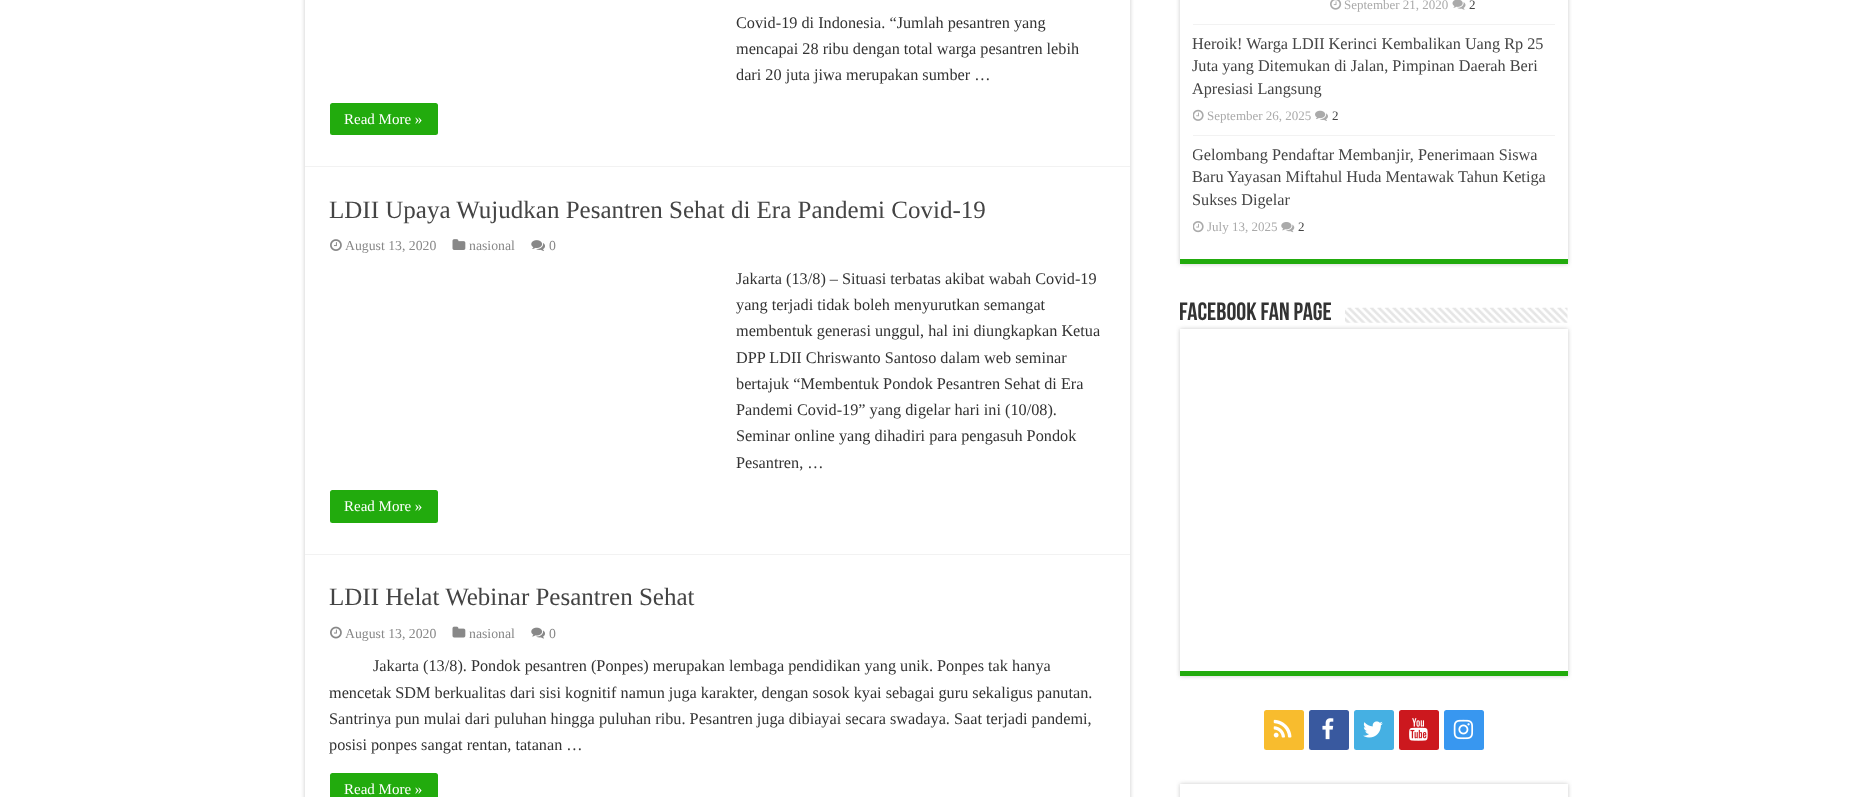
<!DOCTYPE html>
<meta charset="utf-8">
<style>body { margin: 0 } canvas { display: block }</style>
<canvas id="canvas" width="1871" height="797"></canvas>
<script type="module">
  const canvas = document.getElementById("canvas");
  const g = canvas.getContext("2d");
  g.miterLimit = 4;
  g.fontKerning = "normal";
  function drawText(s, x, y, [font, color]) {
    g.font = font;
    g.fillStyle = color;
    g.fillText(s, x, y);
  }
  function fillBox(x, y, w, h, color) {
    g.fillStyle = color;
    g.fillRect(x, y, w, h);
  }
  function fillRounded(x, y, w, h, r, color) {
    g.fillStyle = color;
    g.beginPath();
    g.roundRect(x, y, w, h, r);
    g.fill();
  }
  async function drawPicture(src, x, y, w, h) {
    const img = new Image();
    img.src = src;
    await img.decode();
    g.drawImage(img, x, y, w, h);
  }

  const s1 = ["16.25px Liberation Serif", "#333333"];
  const s2 = ["15px Liberation Serif", "#FFFFFF"];
  const s3 = ["25px Liberation Serif", "#444444"];
  const s4 = ["13.75px Liberation Serif", "#888888"];
  const s5 = ["13px Liberation Serif", "#AAAAAA"];
  const s6 = ["13px Liberation Serif", "#444444"];
  const s7 = ["16.25px Liberation Serif", "#444444"];
  const s8 = ["bold 25px Bebas Neue", "#333333"];

  fillBox(0, 0, 1871, 797, "#FFFFFF");
  g.save();
  g.beginPath();
  g.moveTo(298, 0);
  g.lineTo(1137, 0);
  g.lineTo(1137, 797);
  g.lineTo(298, 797);
  g.closePath();
  g.moveTo(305, -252);
  g.lineTo(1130, -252);
  g.lineTo(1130, 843);
  g.lineTo(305, 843);
  g.closePath();
  g.clip("evenodd");
  g.fillStyle = "#CACACA";
  g.filter = "blur(2px)";
  g.beginPath();
  g.rect(305, -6, 825, 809);
  g.fill();
  g.filter = "none";
  g.restore();
  fillBox(305, 166, 825, 1, "#F2F2F2");
  drawText("Covid-19 di Indonesia. “Jumlah pesantren yang", 736, 28, s1);
  drawText("mencapai 28 ribu dengan total warga pesantren lebih", 736, 54, s1);
  drawText("dari 20 juta jiwa merupakan sumber …", 736, 80, s1);
  fillRounded(330, 103, 108, 32, 2.5, "#22AB0D");
  drawText("Read More »", 344, 124, s2);
  fillBox(305, 554, 825, 1, "#F2F2F2");
  drawText("LDII Upaya Wujudkan Pesantren Sehat di Era Pandemi Covid-19", 329, 218, s3);
  await drawPicture("pic1.png", 330, 239, 12, 12);
  drawText("August 13, 2020", 345, 250, s4);
  await drawPicture("pic2.png", 452, 239, 14, 11);
  drawText("nasional", 469, 250, s4);
  await drawPicture("pic3.png", 531, 240, 14, 11);
  drawText("0", 549, 250, s4);
  drawText("Jakarta (13/8) – Situasi terbatas akibat wabah Covid-19", 736, 284, s1);
  drawText("yang terjadi tidak boleh menyurutkan semangat", 736, 310, s1);
  drawText("membentuk generasi unggul, hal ini diungkapkan Ketua", 736, 336, s1);
  drawText("DPP LDII Chriswanto Santoso dalam web seminar", 736, 363, s1);
  drawText("bertajuk “Membentuk Pondok Pesantren Sehat di Era", 736, 389, s1);
  drawText("Pandemi Covid-19” yang digelar hari ini (10/08).", 736, 415, s1);
  drawText("Seminar online yang dihadiri para pengasuh Pondok", 736, 441, s1);
  drawText("Pesantren, …", 736, 468, s1);
  fillRounded(330, 490, 108, 33, 2.5, "#22AB0D");
  drawText("Read More »", 344, 511, s2);
  drawText("LDII Helat Webinar Pesantren Sehat", 329, 605, s3);
  await drawPicture("pic4.png", 330, 626, 12, 13);
  drawText("August 13, 2020", 345, 638, s4);
  await drawPicture("pic5.png", 452, 626, 14, 12);
  drawText("nasional", 469, 638, s4);
  await drawPicture("pic6.png", 531, 627, 14, 12);
  drawText("0", 549, 638, s4);
  drawText("Jakarta (13/8). Pondok pesantren (Ponpes) merupakan lembaga pendidikan yang unik. Ponpes tak hanya", 373, 671, s1);
  drawText("mencetak SDM berkualitas dari sisi kognitif namun juga karakter, dengan sosok kyai sebagai guru sekaligus panutan.", 329, 698, s1);
  drawText("Santrinya pun mulai dari puluhan hingga puluhan ribu. Pesantren juga dibiayai secara swadaya. Saat terjadi pandemi,", 329, 724, s1);
  drawText("posisi ponpes sangat rentan, tatanan …", 329, 750, s1);
  fillRounded(330, 773, 108, 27, 2.5, "#22AB0D");
  drawText("Read More »", 344, 794, s2);
  g.fillStyle = "#CACACA";
  g.filter = "blur(2px)";
  g.beginPath();
  g.rect(1180, -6, 388, 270);
  g.fill();
  g.filter = "none";
  fillBox(1180, 0, 388, 259, "#FFFFFF");
  fillBox(1180, 259, 388, 5, "#22AB0D");
  fillBox(1193, 24, 362, 1, "#F2F2F2");
  await drawPicture("pic7.png", 1330, 0, 12, 10);
  drawText("September 21, 2020", 1344, 9, s5);
  await drawPicture("pic8.png", 1452, 0, 14, 10);
  drawText("2", 1469, 9, s6);
  fillBox(1193, 135, 362, 1, "#F2F2F2");
  drawText("Heroik! Warga LDII Kerinci Kembalikan Uang Rp 25", 1192, 49, s7);
  drawText("Juta yang Ditemukan di Jalan, Pimpinan Daerah Beri", 1192, 71, s7);
  drawText("Apresiasi Langsung", 1192, 94, s7);
  await drawPicture("pic9.png", 1193, 109, 11, 12);
  drawText("September 26, 2025", 1207, 120, s5);
  await drawPicture("pic10.png", 1315, 110, 13, 11);
  drawText("2", 1332, 120, s6);
  g.save();
  g.beginPath();
  g.rect(1193, 136, 362, 110);
  g.clip();
  drawText("Gelombang Pendaftar Membanjir, Penerimaan Siswa", 1192, 160, s7);
  g.restore();
  drawText("Baru Yayasan Miftahul Huda Mentawak Tahun Ketiga", 1192, 182, s7);
  drawText("Sukses Digelar", 1192, 205, s7);
  await drawPicture("pic11.png", 1193, 221, 11, 12);
  drawText("July 13, 2025", 1207, 231, s5);
  await drawPicture("pic12.png", 1281, 222, 14, 11);
  drawText("2", 1298, 231, s6);
  drawText("Facebook Fan Page", 1179, 320, s8);
  g.fillStyle = "#CACACA";
  g.filter = "blur(2px)";
  g.beginPath();
  g.rect(1180, 329, 388, 347);
  g.fill();
  g.filter = "none";
  await drawPicture("pic13.png", 1345, 307, 223, 16);
  fillBox(1180, 329, 388, 342, "#FFFFFF");
  fillBox(1180, 671, 388, 5, "#22AB0D");
  fillRounded(1264, 710, 40, 40, 2.5, "#F8BC2E");
  await drawPicture("pic14.png", 1273, 719, 19, 19);
  fillRounded(1309, 710, 40, 40, 2.5, "#39599F");
  await drawPicture("pic15.png", 1322, 718, 12, 22);
  fillRounded(1354, 710, 40, 40, 2.5, "#45B0E3");
  await drawPicture("pic16.png", 1363, 721, 20, 17);
  fillRounded(1399, 710, 40, 40, 2.5, "#CC181E");
  await drawPicture("pic17.png", 1409, 718, 19, 23);
  fillRounded(1444, 710, 40, 40, 2.5, "#3897F0");
  await drawPicture("pic18.png", 1453, 719, 21, 21);
  g.fillStyle = "#CACACA";
  g.filter = "blur(2px)";
  g.beginPath();
  g.rect(1180, 784, 388, 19);
  g.fill();
  g.filter = "none";
  fillBox(1180, 784, 388, 13, "#FFFFFF");
</script>
